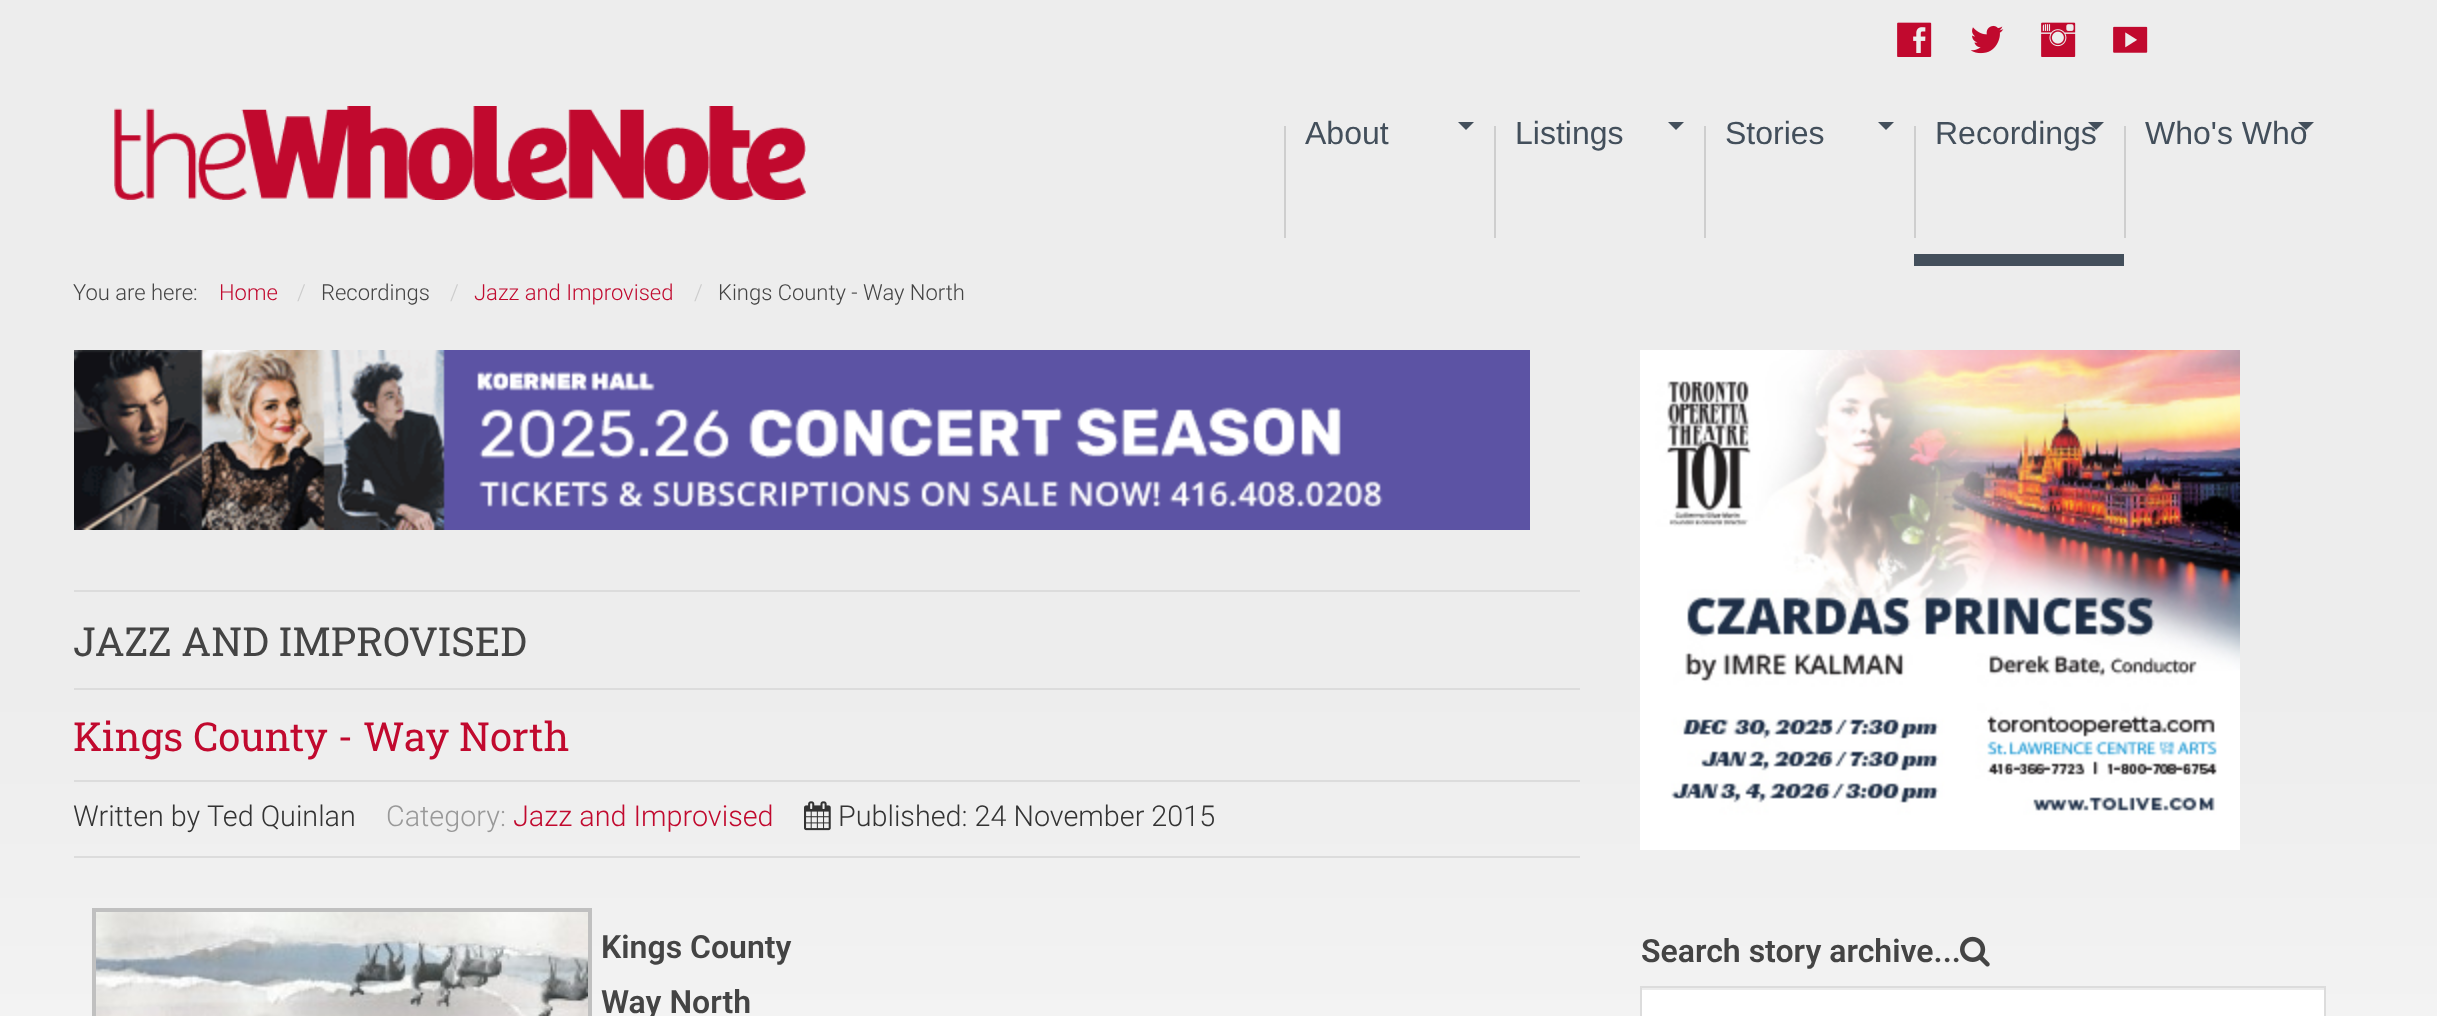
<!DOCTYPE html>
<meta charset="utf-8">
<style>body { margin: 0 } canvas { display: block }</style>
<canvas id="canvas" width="2437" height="1016"></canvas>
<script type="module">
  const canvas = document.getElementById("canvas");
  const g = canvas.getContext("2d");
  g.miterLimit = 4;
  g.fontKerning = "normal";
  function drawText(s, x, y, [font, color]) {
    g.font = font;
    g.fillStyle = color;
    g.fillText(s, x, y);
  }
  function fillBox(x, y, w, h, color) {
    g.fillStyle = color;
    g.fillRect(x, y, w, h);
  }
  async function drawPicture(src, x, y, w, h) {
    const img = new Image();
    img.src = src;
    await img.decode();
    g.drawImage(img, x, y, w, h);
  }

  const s1 = ["32px Liberation Sans", "#434F5B"];
  const s2 = ["300 22px Roboto", "#444444"];
  const s3 = ["300 22px Roboto", "#C1092E"];
  const s4 = ["300 22px Roboto", "#CCCCCC"];
  const s5 = ["40px Roboto Slab", "#444444"];
  const s6 = ["40px Roboto Slab", "#C1092E"];
  const s7 = ["300 28.75px Roboto", "#333333"];
  const s8 = ["300 28.75px Roboto", "#999999"];
  const s9 = ["300 28.75px Roboto", "#C1092E"];
  const s10 = ["600 32px Roboto", "#444444"];

  fillBox(0, 0, 2437, 1016, "#FFFFFF");
  await drawPicture("pic1.png", 0, 0, 2437, 1016);
  await drawPicture("pic2.png", 1897, 22, 35, 35);
  await drawPicture("pic3.png", 1970, 25, 34, 29);
  await drawPicture("pic4.png", 2041, 22, 35, 35);
  await drawPicture("pic5.png", 2113, 26, 35, 27);
  await drawPicture("pic6.png", 114, 106, 692, 94);
  fillBox(1284, 126, 2, 112, "#CECECE");
  drawText("About", 1305, 144, s1);
  g.beginPath();
  g.moveTo(1458, 122);
  g.lineTo(1474, 122);
  g.lineTo(1466, 130);
  g.closePath();
  g.fill();
  fillBox(1494, 126, 2, 112, "#CECECE");
  drawText("Listings", 1515, 144, s1);
  g.beginPath();
  g.moveTo(1668, 122);
  g.lineTo(1684, 122);
  g.lineTo(1676, 130);
  g.closePath();
  g.fill();
  fillBox(1704, 126, 2, 112, "#CECECE");
  drawText("Stories", 1725, 144, s1);
  g.beginPath();
  g.moveTo(1878, 122);
  g.lineTo(1894, 122);
  g.lineTo(1886, 130);
  g.closePath();
  g.fill();
  fillBox(1914, 126, 2, 112, "#CECECE");
  fillBox(1914, 254, 210, 12, "#434F5B");
  drawText("Recordings", 1935, 144, s1);
  g.beginPath();
  g.moveTo(2088, 122);
  g.lineTo(2104, 122);
  g.lineTo(2096, 130);
  g.closePath();
  g.fill();
  fillBox(2124, 126, 2, 112, "#CECECE");
  drawText("Who's Who", 2145, 144, s1);
  g.beginPath();
  g.moveTo(2298, 122);
  g.lineTo(2314, 122);
  g.lineTo(2306, 130);
  g.closePath();
  g.fill();
  drawText("You are here:", 73, 300, s2);
  drawText("Home", 219, 300, s3);
  drawText("/", 297, 300, s4);
  drawText("Recordings", 321, 300, s2);
  drawText("/", 450, 300, s4);
  drawText("Jazz and Improvised", 474, 300, s3);
  drawText("/", 694, 300, s4);
  drawText("Kings County - Way North", 718, 300, s2);
  await drawPicture("pic7.png", 74, 350, 1456, 180);
  fillBox(74, 590, 1506, 2, "#DCDCDC");
  drawText("JAZZ AND IMPROVISED", 73, 656, s5);
  fillBox(74, 688, 1506, 2, "#DCDCDC");
  drawText("Kings County - Way North", 73, 751, s6);
  fillBox(74, 780, 1506, 2, "#DCDCDC");
  fillBox(74, 856, 1506, 2, "#DCDCDC");
  drawText("Written by", 73, 826, s7);
  drawText("Ted Quinlan", 207, 826, s7);
  drawText("Category:", 386, 826, s8);
  drawText("Jazz and Improvised", 513, 826, s9);
  await drawPicture("pic8.png", 804, 801, 27, 30);
  drawText("Published: 24 November 2015", 838, 826, s7);
  g.strokeStyle = "#C0C0C0";
  g.lineWidth = 4;
  g.strokeRect(94, 910, 496, 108);
  await drawPicture("pic9.png", 96, 912, 492, 104);
  drawText("Kings County", 601, 958, s10);
  drawText("Way North", 601, 1013, s10);
  await drawPicture("pic10.png", 1640, 350, 600, 500);
  drawText("Search story archive...", 1641, 962, s10);
  await drawPicture("pic11.png", 1960, 936, 30, 31);
  fillBox(1642, 990, 682, 26, "#FFFFFF");
  fillBox(1642, 988, 682, 2, "#ECECEC");
  g.strokeStyle = "#DCDCDC";
  g.lineWidth = 2;
  g.strokeRect(1641, 987, 684, 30);
</script>
